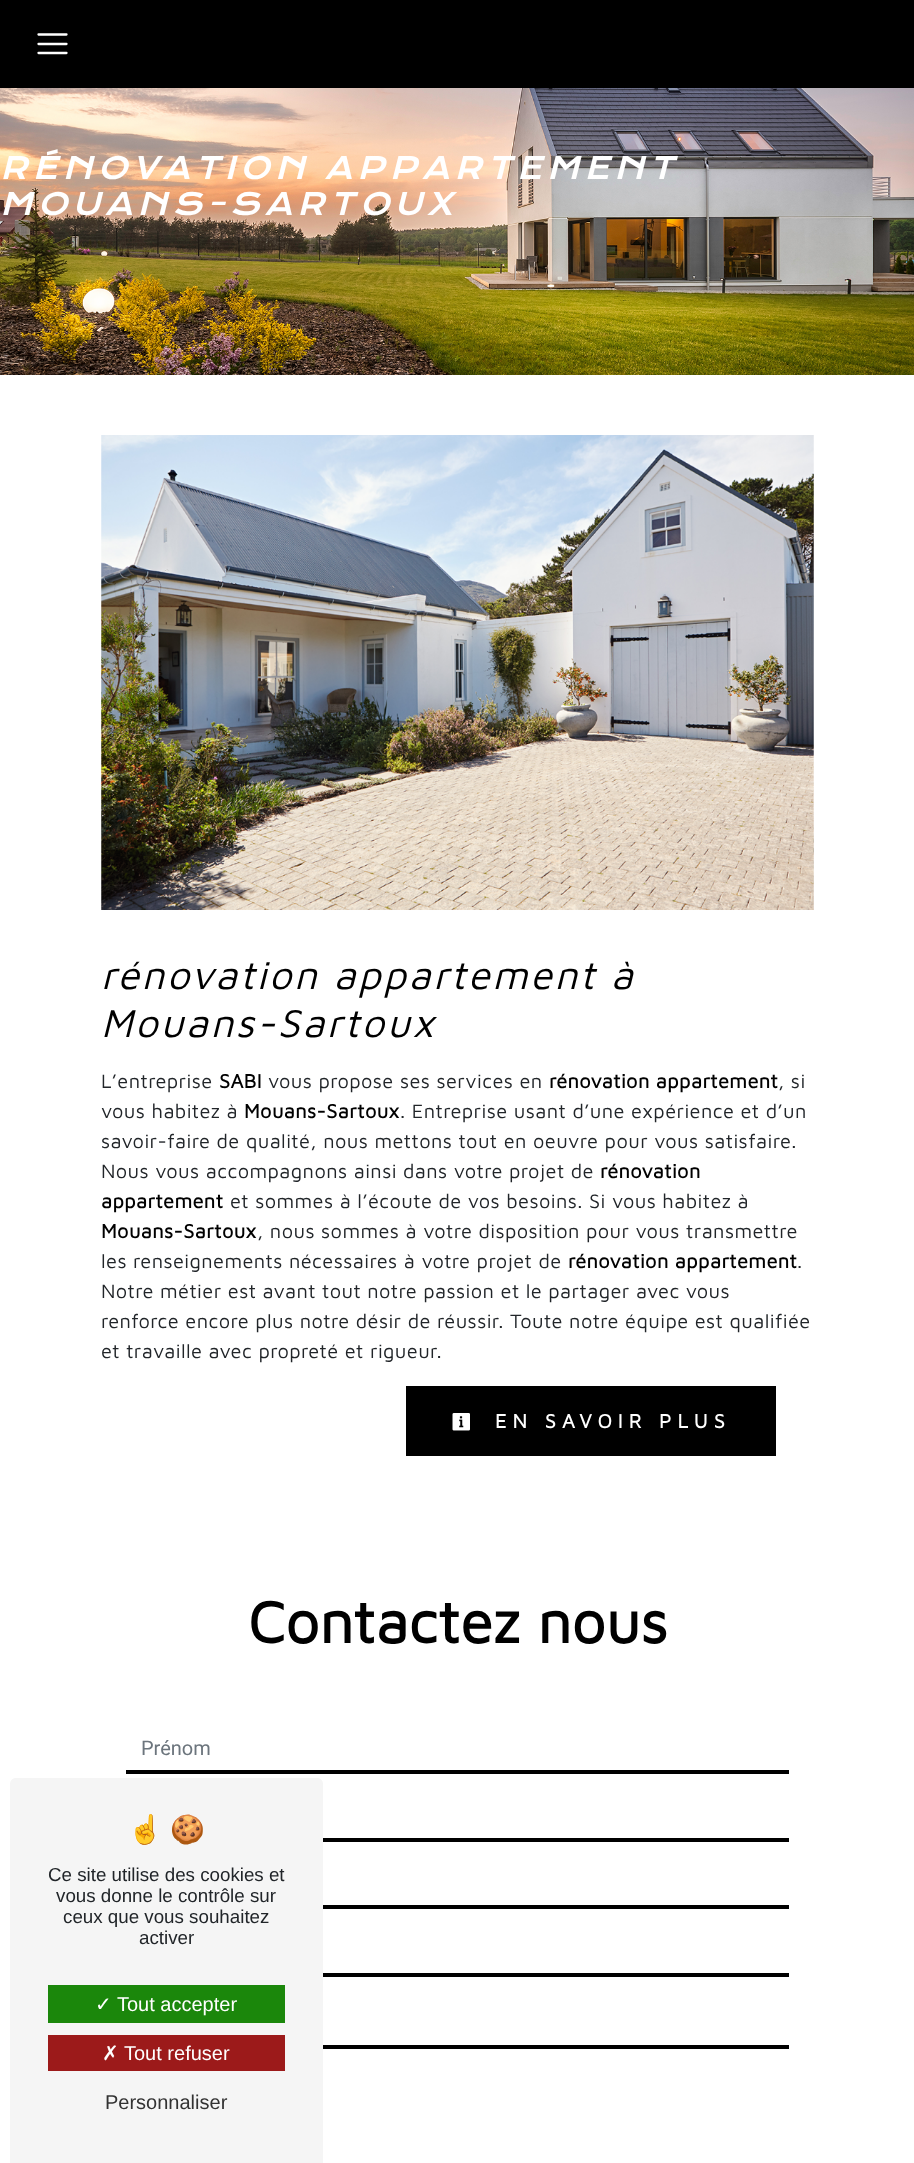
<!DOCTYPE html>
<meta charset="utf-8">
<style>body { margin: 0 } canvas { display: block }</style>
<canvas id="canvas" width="914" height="2163"></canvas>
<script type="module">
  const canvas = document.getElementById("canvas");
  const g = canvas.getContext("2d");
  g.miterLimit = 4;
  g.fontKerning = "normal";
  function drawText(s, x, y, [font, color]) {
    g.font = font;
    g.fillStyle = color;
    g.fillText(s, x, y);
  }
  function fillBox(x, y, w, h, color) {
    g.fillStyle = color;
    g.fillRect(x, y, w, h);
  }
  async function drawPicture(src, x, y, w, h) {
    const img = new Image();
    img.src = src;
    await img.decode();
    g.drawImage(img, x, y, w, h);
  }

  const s1 = ["italic 30px Krona One", "#FFFFFF"];
  const s2 = ["italic 40px Maven Pro", "#000000"];
  const s3 = ["20px Maven Pro", "#212529"];
  const s4 = ["bold 20px Maven Pro", "#000000"];
  const s5 = ["bold 20px Maven Pro", "#FFFFFF"];
  const s6 = ["bold 60px Maven Pro", "#000000"];
  const s7 = ["20px Roboto", "#6C757D"];
  const s8 = ["28px Noto Color Emoji", "#212529"];
  const s9 = ["18.75px Liberation Sans", "#212529"];
  const s10 = ["20px DejaVu Sans", "#FFFFFF"];
  const s11 = ["20px Liberation Sans", "#FFFFFF"];
  const s12 = ["20px Liberation Sans", "#333333"];

  fillBox(0, 0, 914, 2163, "#FFFFFF");
  fillBox(0, 0, 914, 88, "#000000");
  g.beginPath();
  g.moveTo(38.5, 34.5);
  g.lineTo(66.5, 34.5);
  g.moveTo(38.5, 44);
  g.lineTo(66.5, 44);
  g.moveTo(38.5, 53);
  g.lineTo(66.5, 53);
  g.strokeStyle = "#FFFFFF";
  g.lineWidth = 2.3;
  g.lineCap = "round";
  g.stroke();
  await drawPicture("pic1.png", 0, 88, 914, 287);
  g.letterSpacing = "5px";
  drawText("RÉNOVATION APPARTEMENT", 0, 179, s1);
  drawText("MOUANS-SARTOUX", 0, 215, s1);
  await drawPicture("pic2.png", 101, 435, 713, 475);
  g.letterSpacing = "2.5px";
  drawText("rénovation appartement à", 101, 989, s2);
  drawText("Mouans-Sartoux", 101, 1037, s2);
  g.letterSpacing = "0.4px";
  drawText("L’entreprise", 101, 1088, s3);
  drawText("SABI", 219, 1088, s4);
  drawText("vous propose ses services en", 268, 1088, s3);
  drawText("rénovation appartement", 549, 1088, s4);
  drawText(", si", 778, 1088, s3);
  drawText("vous habitez à", 101, 1118, s3);
  drawText("Mouans-Sartoux", 244, 1118, s4);
  drawText(". Entreprise usant d’une expérience et d’un", 400, 1118, s3);
  drawText("savoir-faire de qualité, nous mettons tout en oeuvre pour vous satisfaire.", 101, 1148, s3);
  drawText("Nous vous accompagnons ainsi dans votre projet de", 101, 1178, s3);
  drawText("rénovation", 600, 1178, s4);
  drawText("appartement", 101, 1208, s4);
  drawText("et sommes à l’écoute de vos besoins. Si vous habitez à", 230, 1208, s3);
  drawText("Mouans-Sartoux", 101, 1238, s4);
  drawText(", nous sommes à votre disposition pour vous transmettre", 257, 1238, s3);
  drawText("les renseignements nécessaires à votre projet de", 101, 1268, s3);
  drawText("rénovation appartement", 568, 1268, s4);
  drawText(".", 797, 1268, s3);
  drawText("Notre métier est avant tout notre passion et le partager avec vous", 101, 1298, s3);
  drawText("renforce encore plus notre désir de réussir. Toute notre équipe est qualifiée", 101, 1328, s3);
  drawText("et travaille avec propreté et rigueur.", 101, 1358, s3);
  fillBox(406, 1386, 370, 70, "#000000");
  await drawPicture("pic3.png", 452, 1413, 18, 18);
  g.letterSpacing = "6px";
  drawText("EN SAVOIR PLUS", 495, 1428, s5);
  g.letterSpacing = "0px";
  drawText("Contactez nous", 248, 1643, s6);
  fillBox(126, 1770, 663, 4, "#000000");
  drawText("Prénom", 141, 1755, s7);
  fillBox(323, 1838, 466, 4, "#000000");
  fillBox(323, 1905, 466, 4, "#000000");
  fillBox(323, 1973, 466, 4, "#000000");
  fillBox(323, 2045, 466, 4, "#000000");
  g.fillStyle = "#F5F5F5";
  g.beginPath();
  g.moveTo(16, 1778);
  g.lineTo(317, 1778);
  g.bezierCurveTo(320.5, 1778, 323, 1780.5, 323, 1784);
  g.lineTo(323, 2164);
  g.lineTo(10, 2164);
  g.lineTo(10, 1784);
  g.bezierCurveTo(10, 1780.5, 12.5, 1778, 16, 1778);
  g.closePath();
  g.fill();
  drawText("☝", 128, 1839, s8);
  drawText("🍪", 170, 1839, s8);
  drawText("Ce site utilise des cookies et", 48, 1881, s9);
  drawText("vous donne le contrôle sur", 56, 1902, s9);
  drawText("ceux que vous souhaitez", 63, 1923, s9);
  drawText("activer", 139, 1944, s9);
  fillBox(48, 1985, 237, 38, "#1B870B");
  drawText("✓", 95, 2011, s10);
  drawText("Tout accepter", 117, 2011, s11);
  fillBox(48, 2035, 237, 36, "#9C1A1A");
  drawText("✗", 102, 2060, s10);
  drawText("Tout refuser", 124, 2060, s11);
  drawText("Personnaliser", 105, 2109, s12);
</script>
